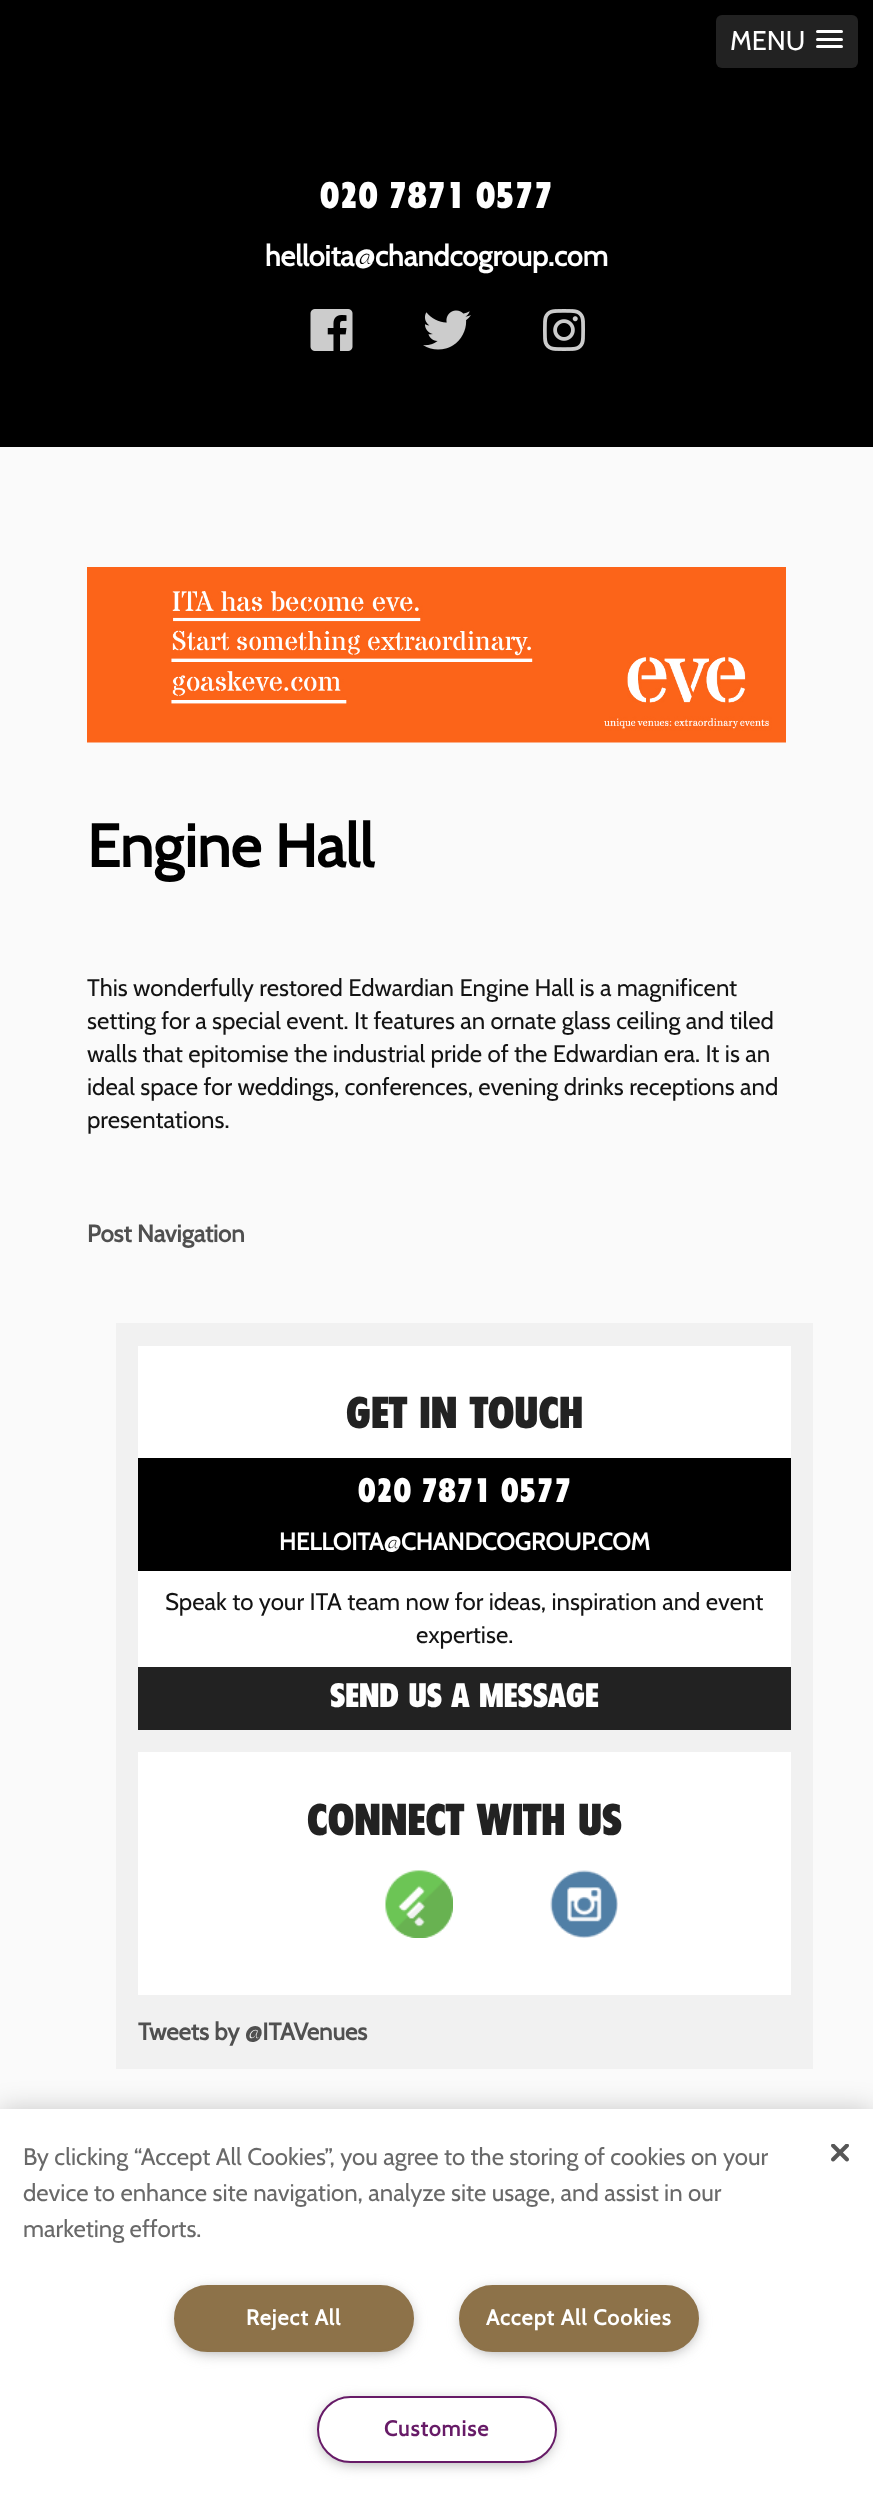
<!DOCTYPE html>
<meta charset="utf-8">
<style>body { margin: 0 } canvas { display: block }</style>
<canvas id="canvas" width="873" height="2502"></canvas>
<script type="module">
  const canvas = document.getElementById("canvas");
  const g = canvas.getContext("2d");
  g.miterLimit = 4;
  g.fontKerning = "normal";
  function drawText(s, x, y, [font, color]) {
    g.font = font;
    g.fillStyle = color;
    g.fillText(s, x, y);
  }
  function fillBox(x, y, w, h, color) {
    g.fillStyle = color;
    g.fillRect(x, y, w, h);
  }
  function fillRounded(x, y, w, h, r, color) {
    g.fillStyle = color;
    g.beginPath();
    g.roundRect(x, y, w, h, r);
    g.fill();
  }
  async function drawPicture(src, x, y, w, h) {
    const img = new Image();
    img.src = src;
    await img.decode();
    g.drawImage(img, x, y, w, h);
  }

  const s1 = ["27px Cabin", "#FFFFFF"];
  const s2 = ["900 36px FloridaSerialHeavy", "#FFFFFF"];
  const s3 = ["bold 28.75px Cabin", "#FFFFFF"];
  const s4 = ["bold 60px Cabin", "#000000"];
  const s5 = ["24px Cabin", "#131313"];
  const s6 = ["bold 24px Cabin", "#505050"];
  const s7 = ["900 43.25px FloridaSerialHeavy", "#222222"];
  const s8 = ["900 33px FloridaSerialHeavy", "#FFFFFF"];
  const s9 = ["bold 24px Cabin", "#FFFFFF"];
  const s10 = ["24px Cabin", "#696969"];
  const s11 = ["bold 21.5px Cabin", "#FFFFFF"];
  const s12 = ["bold 21.5px Cabin", "#671B67"];

  fillBox(0, 0, 873, 2502, "#FAFAFA");
  fillBox(0, 0, 873, 447, "#000000");
  fillRounded(716, 15, 142, 53, 6, "#222222");
  drawText("MENU", 730, 50, s1);
  fillRounded(816, 30, 27, 3, 1.5, "#FFFFFF");
  fillRounded(816, 38, 27, 3, 1.5, "#FFFFFF");
  fillRounded(816, 45, 27, 3, 1.5, "#FFFFFF");
  drawText("020 7871 0577", 320, 208, s2);
  drawText("helloita@chandcogroup.com", 265, 266, s3);
  await drawPicture("pic1.png", 310, 309, 43, 42);
  await drawPicture("pic2.png", 423, 310, 48, 40);
  await drawPicture("pic3.png", 543, 309, 42, 42);
  await drawPicture("pic4.png", 87, 567, 699, 176);
  drawText("Engine Hall", 87, 867, s4);
  drawText("This wonderfully restored Edwardian Engine Hall is a magnificent", 87, 996, s5);
  drawText("setting for a special event. It features an ornate glass ceiling and tiled", 87, 1029, s5);
  drawText("walls that epitomise the industrial pride of the Edwardian era. It is an", 87, 1062, s5);
  drawText("ideal space for weddings, conferences, evening drinks receptions and", 87, 1095, s5);
  drawText("presentations.", 87, 1128, s5);
  drawText("Post Navigation", 87, 1242, s6);
  fillBox(116, 1323, 697, 746, "#F1F1F1");
  fillBox(138, 1346, 653, 321, "#FFFFFF");
  drawText("GET IN TOUCH", 346, 1428, s7);
  fillBox(138, 1458, 653, 113, "#000000");
  drawText("020 7871 0577", 358, 1502, s8);
  drawText("HELLOITA@CHANDCOGROUP.COM", 279, 1550, s9);
  drawText("Speak to your ITA team now for ideas, inspiration and event", 165, 1610, s5);
  drawText("expertise.", 416, 1643, s5);
  fillBox(138, 1667, 653, 63, "#222222");
  drawText("SEND US A MESSAGE", 330, 1707, s8);
  fillBox(138, 1752, 653, 243, "#FFFFFF");
  drawText("CONNECT WITH US", 307, 1835, s7);
  await drawPicture("pic5.png", 385, 1870, 68, 68);
  await drawPicture("pic6.png", 550, 1870, 68, 68);
  drawText("Tweets by @ITAVenues", 138, 2040, s6);
  g.fillStyle = "rgba(0, 0, 0, 0.2)";
  g.filter = "blur(13.5px)";
  g.beginPath();
  g.rect(0, 2109, 873, 393);
  g.fill();
  g.filter = "none";
  fillBox(0, 2109, 873, 393, "#FFFFFF");
  drawText("By clicking “Accept All Cookies”, you agree to the storing of cookies on your", 23, 2165, s10);
  drawText("device to enhance site navigation, analyze site usage, and assist in our", 23, 2201, s10);
  drawText("marketing efforts.", 23, 2237, s10);
  g.fillStyle = "#999999";
  g.filter = "blur(7.5px)";
  g.beginPath();
  g.roundRect(179, 2292, 231, 59, 29.5);
  g.fill();
  g.filter = "none";
  g.fillStyle = "#8D7249";
  g.beginPath();
  g.roundRect(175, 2286, 238, 65, 32.5);
  g.fill();
  g.strokeStyle = "#8D7249";
  g.lineWidth = 2;
  g.stroke();
  g.letterSpacing = "1.1px";
  drawText("Reject All", 246, 2325, s11);
  g.fillStyle = "#999999";
  g.filter = "blur(7.5px)";
  g.beginPath();
  g.roundRect(464, 2292, 231, 59, 29.5);
  g.fill();
  g.filter = "none";
  g.fillStyle = "#8D7249";
  g.beginPath();
  g.roundRect(460, 2286, 238, 65, 32.5);
  g.fill();
  g.stroke();
  drawText("Accept All Cookies", 486, 2325, s11);
  g.fillStyle = "#999999";
  g.filter = "blur(7.5px)";
  g.beginPath();
  g.roundRect(321, 2403, 231, 59, 29.5);
  g.fill();
  g.filter = "none";
  g.fillStyle = "#FFFFFF";
  g.beginPath();
  g.roundRect(318, 2397, 238, 65, 32.5);
  g.fill();
  g.strokeStyle = "#671B67";
  g.stroke();
  drawText("Customise", 384, 2436, s12);
  await drawPicture("pic7.png", 831, 2144, 18, 18);
</script>
